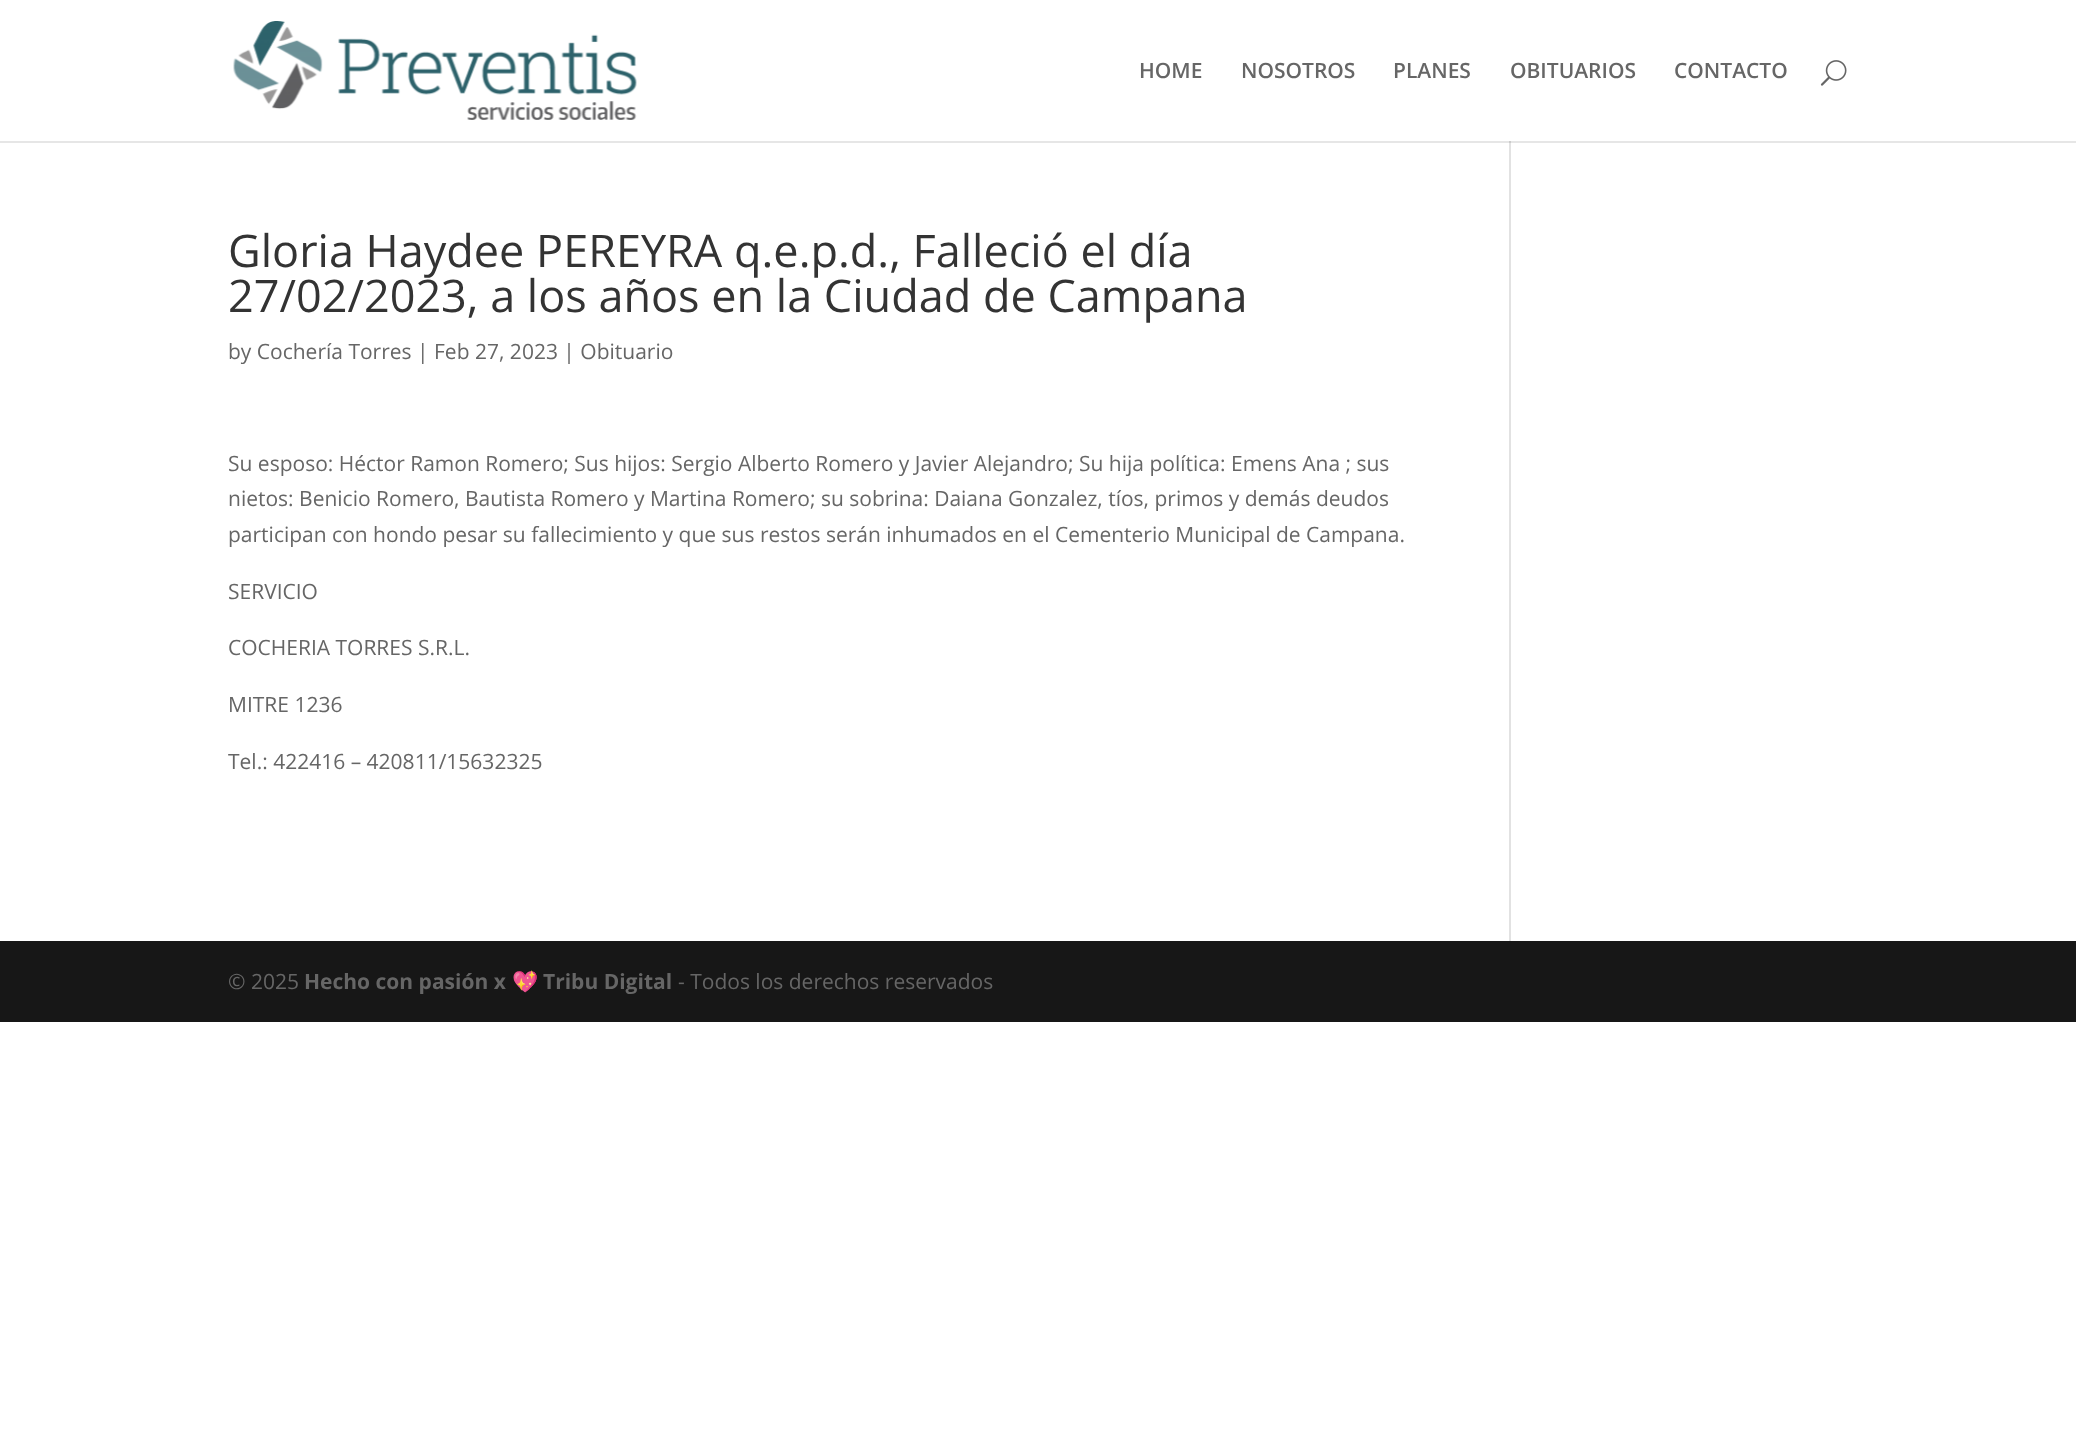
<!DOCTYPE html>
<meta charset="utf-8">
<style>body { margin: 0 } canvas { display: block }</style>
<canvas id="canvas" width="2076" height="1449"></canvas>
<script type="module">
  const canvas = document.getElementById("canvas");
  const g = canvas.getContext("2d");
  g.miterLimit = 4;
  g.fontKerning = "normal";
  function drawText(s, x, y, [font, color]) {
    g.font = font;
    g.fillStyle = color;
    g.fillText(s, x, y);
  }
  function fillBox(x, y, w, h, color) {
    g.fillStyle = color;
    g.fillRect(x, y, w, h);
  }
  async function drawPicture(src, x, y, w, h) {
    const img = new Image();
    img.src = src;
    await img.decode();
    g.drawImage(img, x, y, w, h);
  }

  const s1 = ["600 21px Open Sans", "#666666"];
  const s2 = ["45px Open Sans", "#333333"];
  const s3 = ["21px Open Sans", "#666666"];
  const s4 = ["bold 21px Open Sans", "#666666"];
  const s5 = ["bold 21px Noto Color Emoji", "#666666"];

  fillBox(0, 0, 2076, 1449, "#FFFFFF");
  fillBox(0, 141, 2076, 2, "#E6E6E6");
  await drawPicture("pic1.png", 233, 21, 404, 99);
  drawText("HOME", 1139, 78, s1);
  drawText("NOSOTROS", 1241, 78, s1);
  drawText("PLANES", 1393, 78, s1);
  drawText("OBITUARIOS", 1510, 78, s1);
  drawText("CONTACTO", 1674, 78, s1);
  await drawPicture("pic2.png", 1820, 60, 27, 26);
  drawText("Gloria Haydee PEREYRA q.e.p.d., Falleció el día", 228, 267, s2);
  drawText("27/02/2023, a los años en la Ciudad de Campana", 228, 312, s2);
  drawText("by Cochería Torres | Feb 27, 2023 | Obituario", 228, 359, s3);
  drawText("Su esposo: Héctor Ramon Romero; Sus hijos: Sergio Alberto Romero y Javier Alejandro; Su hija política: Emens Ana ; sus", 228, 471, s3);
  drawText("nietos: Benicio Romero, Bautista Romero y Martina Romero; su sobrina: Daiana Gonzalez, tíos, primos y demás deudos", 228, 506, s3);
  drawText("participan con hondo pesar su fallecimiento y que sus restos serán inhumados en el Cementerio Municipal de Campana.", 228, 542, s3);
  drawText("SERVICIO", 228, 599, s3);
  drawText("COCHERIA TORRES S.R.L.", 228, 655, s3);
  drawText("MITRE 1236", 228, 712, s3);
  drawText("Tel.: 422416 – 420811/15632325", 228, 769, s3);
  fillBox(1509, 141, 2, 800, "#E2E2E2");
  fillBox(1509, 141, 2, 2, "#CBCBCB");
  fillBox(0, 941, 2076, 81, "#171717");
  drawText("© 2025", 228, 989, s3);
  drawText("Hecho con pasión x", 304, 989, s4);
  drawText("💖", 512, 989, s5);
  drawText("Tribu Digital", 543, 989, s4);
  drawText("- Todos los derechos reservados", 678, 989, s3);
</script>
